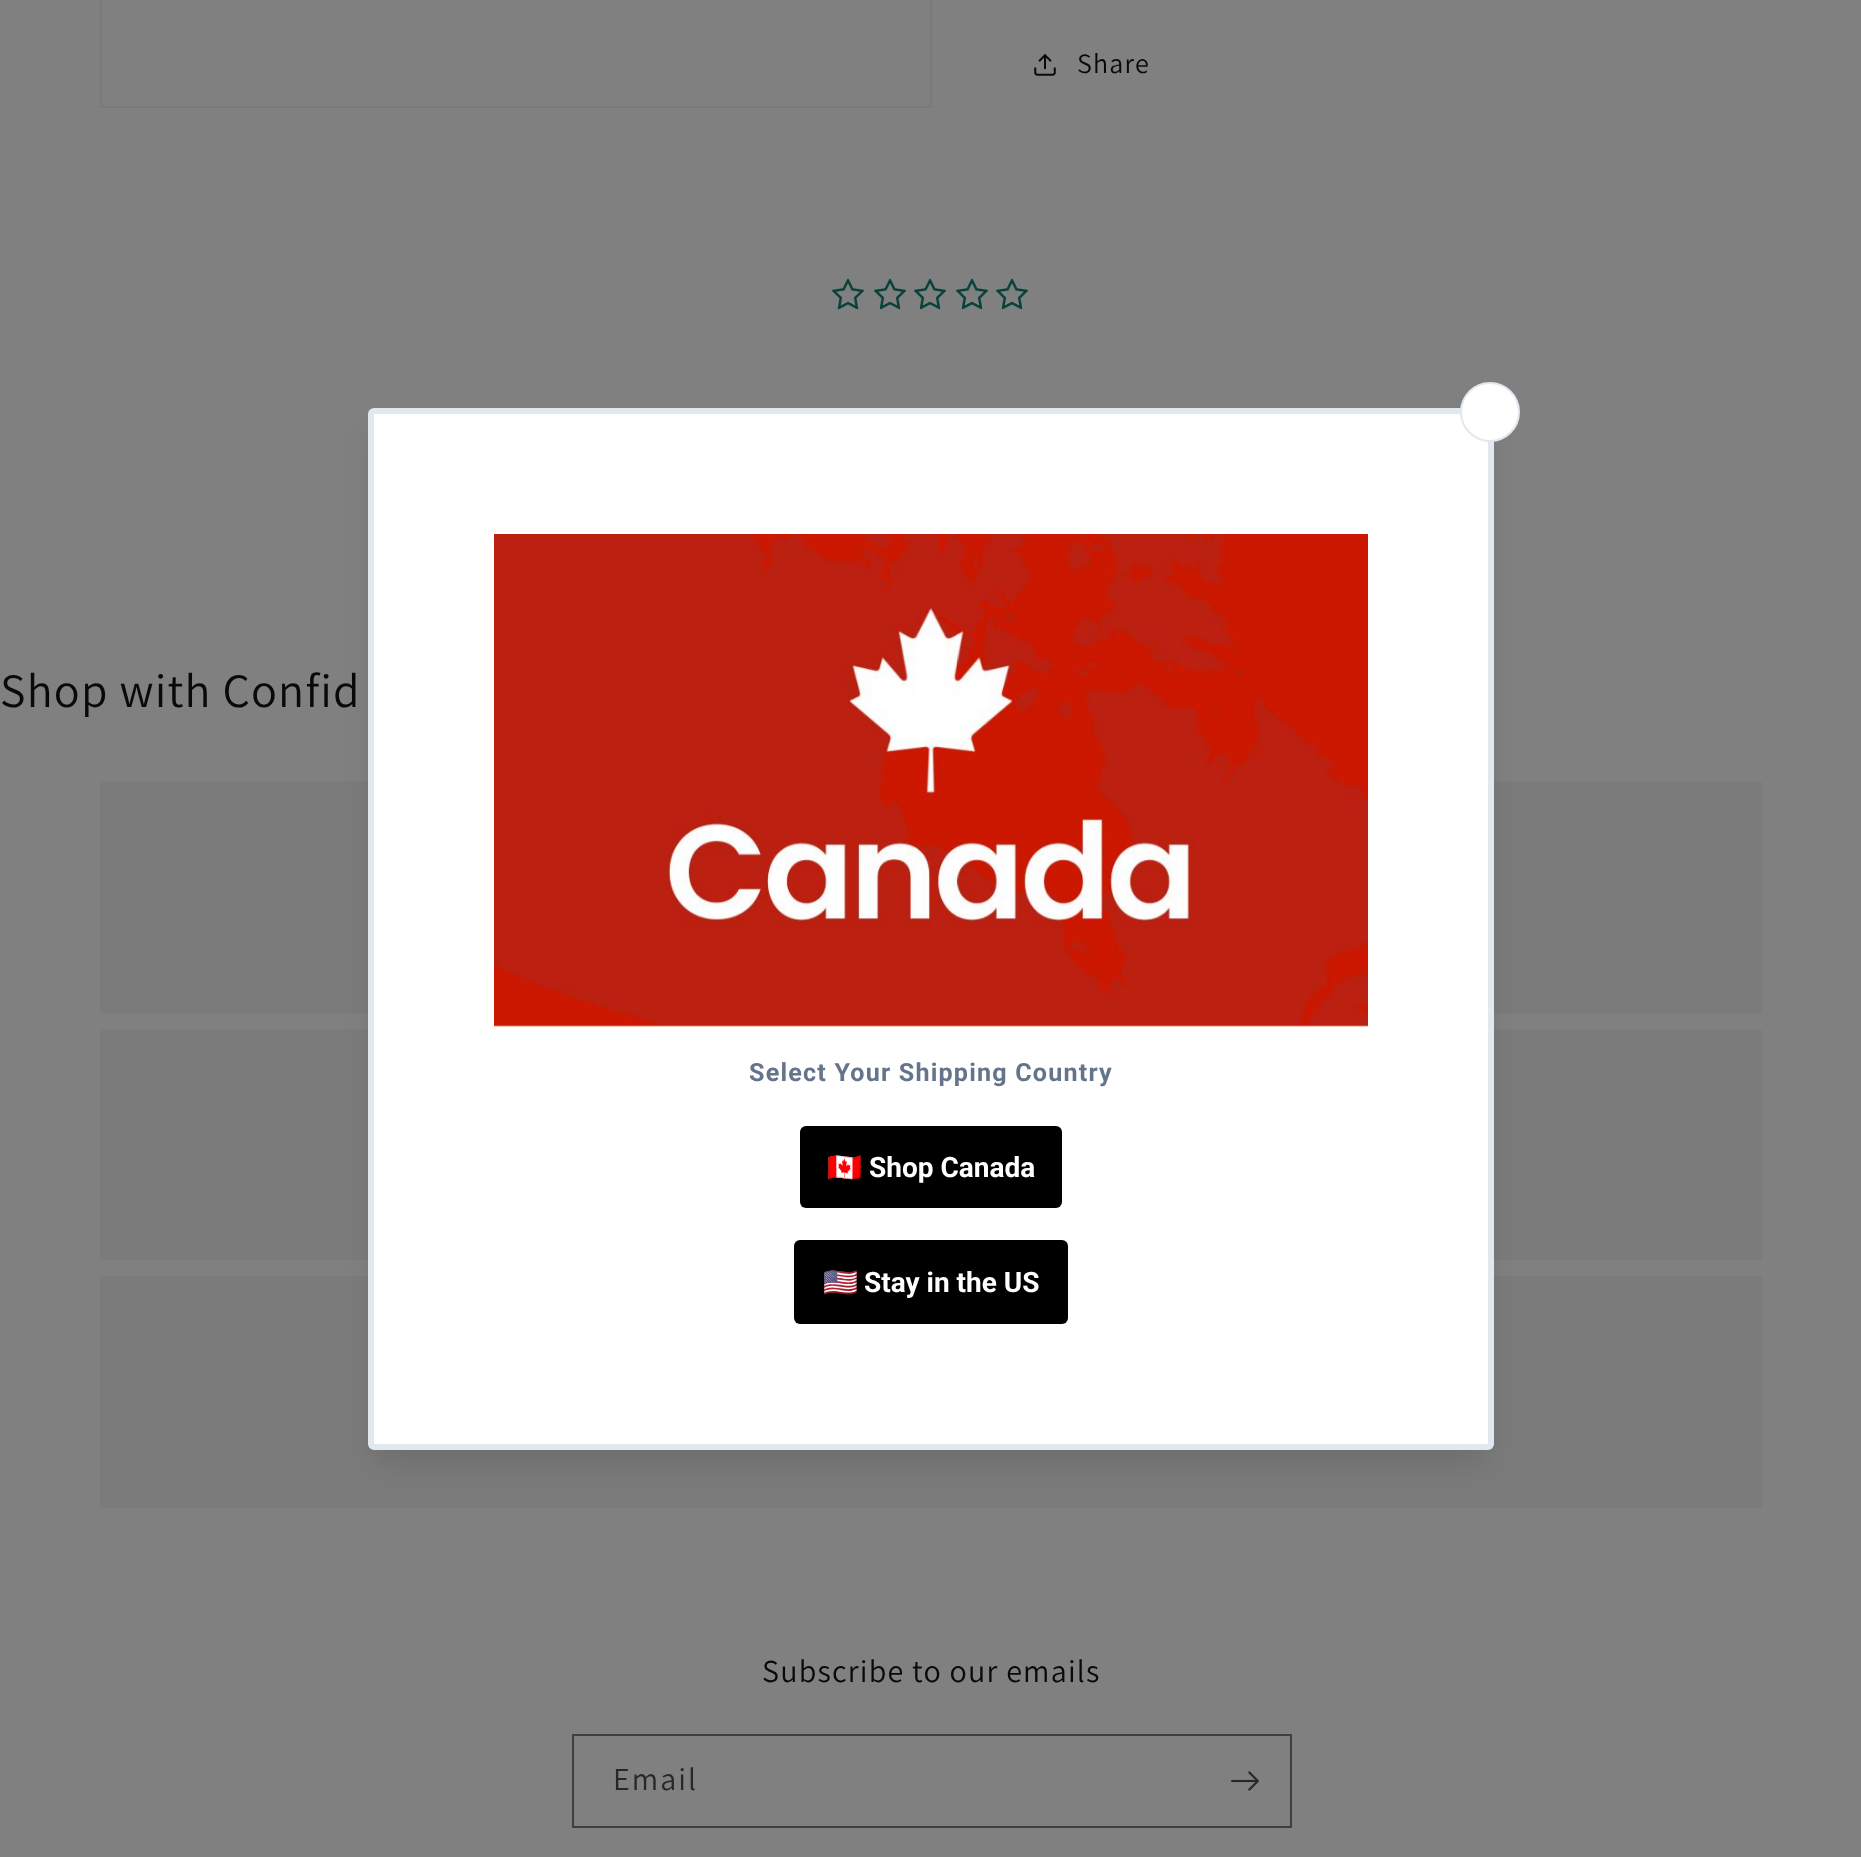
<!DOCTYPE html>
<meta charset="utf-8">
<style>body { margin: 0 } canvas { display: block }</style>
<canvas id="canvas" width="1861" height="1857"></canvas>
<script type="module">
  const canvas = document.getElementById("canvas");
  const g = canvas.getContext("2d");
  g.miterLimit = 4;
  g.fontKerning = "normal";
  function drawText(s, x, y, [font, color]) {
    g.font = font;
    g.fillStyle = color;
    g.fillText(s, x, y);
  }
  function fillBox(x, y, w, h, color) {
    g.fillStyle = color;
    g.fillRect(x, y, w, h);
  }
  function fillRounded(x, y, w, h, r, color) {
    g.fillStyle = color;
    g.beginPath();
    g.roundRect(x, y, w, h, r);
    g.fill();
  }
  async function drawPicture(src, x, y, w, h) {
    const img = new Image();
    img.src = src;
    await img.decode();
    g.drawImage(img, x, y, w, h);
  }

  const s1 = ["28px Assistant", "#090909"];
  const s2 = ["48px Assistant", "#090909"];
  const s3 = ["bold 25.1px Roboto", "#64748B"];
  const s4 = ["bold 28px Noto Color Emoji", "#FFFFFF"];
  const s5 = ["bold 28px Roboto", "#FFFFFF"];
  const s6 = ["32px Assistant", "#090909"];
  const s7 = ["32px Assistant", "#272727"];

  fillBox(0, 0, 1861, 1857, "#808080");
  g.strokeStyle = "#7A7A7A";
  g.lineWidth = 2;
  g.strokeRect(101, -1, 830, 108);
  await drawPicture("pic1.png", 1034, 54, 22, 22);
  g.letterSpacing = "1.2px";
  drawText("Share", 1077, 73, s1);
  await drawPicture("pic2.png", 832, 278, 32, 32);
  await drawPicture("pic2.png", 874, 278, 32, 32);
  await drawPicture("pic2.png", 914, 278, 32, 32);
  await drawPicture("pic2.png", 956, 278, 32, 32);
  await drawPicture("pic2.png", 996, 278, 32, 32);
  drawText("Shop with Confid", 0, 707, s2);
  fillBox(100, 782, 1662, 232, "#7B7B7B");
  fillBox(100, 1030, 1662, 230, "#7B7B7B");
  fillBox(100, 1276, 1662, 232, "#7B7B7B");
  g.fillStyle = "rgba(0, 0, 0, 0.1)";
  g.filter = "blur(15px)";
  g.beginPath();
  g.rect(374, 434, 1114, 1030);
  g.fill();
  g.filter = "none";
  g.fillStyle = "#FFFFFF";
  g.beginPath();
  g.roundRect(371, 411, 1120, 1036, 3);
  g.fill();
  g.strokeStyle = "#E2E8F0";
  g.lineWidth = 6;
  g.stroke();
  g.beginPath();
  g.arc(1490, 412, 29, 0, Math.PI * 2);
  g.fill();
  g.lineWidth = 2;
  g.stroke();
  await drawPicture("pic3.png", 494, 534, 874, 493);
  drawText("Select Your Shipping Country", 749, 1081, s3);
  fillRounded(800, 1126, 262, 82, 6, "#000000");
  g.letterSpacing = "0px";
  drawText("🇨🇦", 827, 1177, s4);
  drawText("Shop Canada", 869, 1177, s5);
  fillRounded(794, 1240, 274, 84, 6, "#000000");
  drawText("🇺🇸", 823, 1292, s4);
  drawText("Stay in the US", 864, 1292, s5);
  g.letterSpacing = "1.2px";
  drawText("Subscribe to our emails", 762, 1682, s6);
  g.strokeStyle = "#3F3F3F";
  g.strokeRect(573, 1735, 718, 92);
  g.letterSpacing = "2px";
  drawText("Email", 613, 1790, s7);
  await drawPicture("pic4.png", 1231, 1771, 28, 20);
</script>
